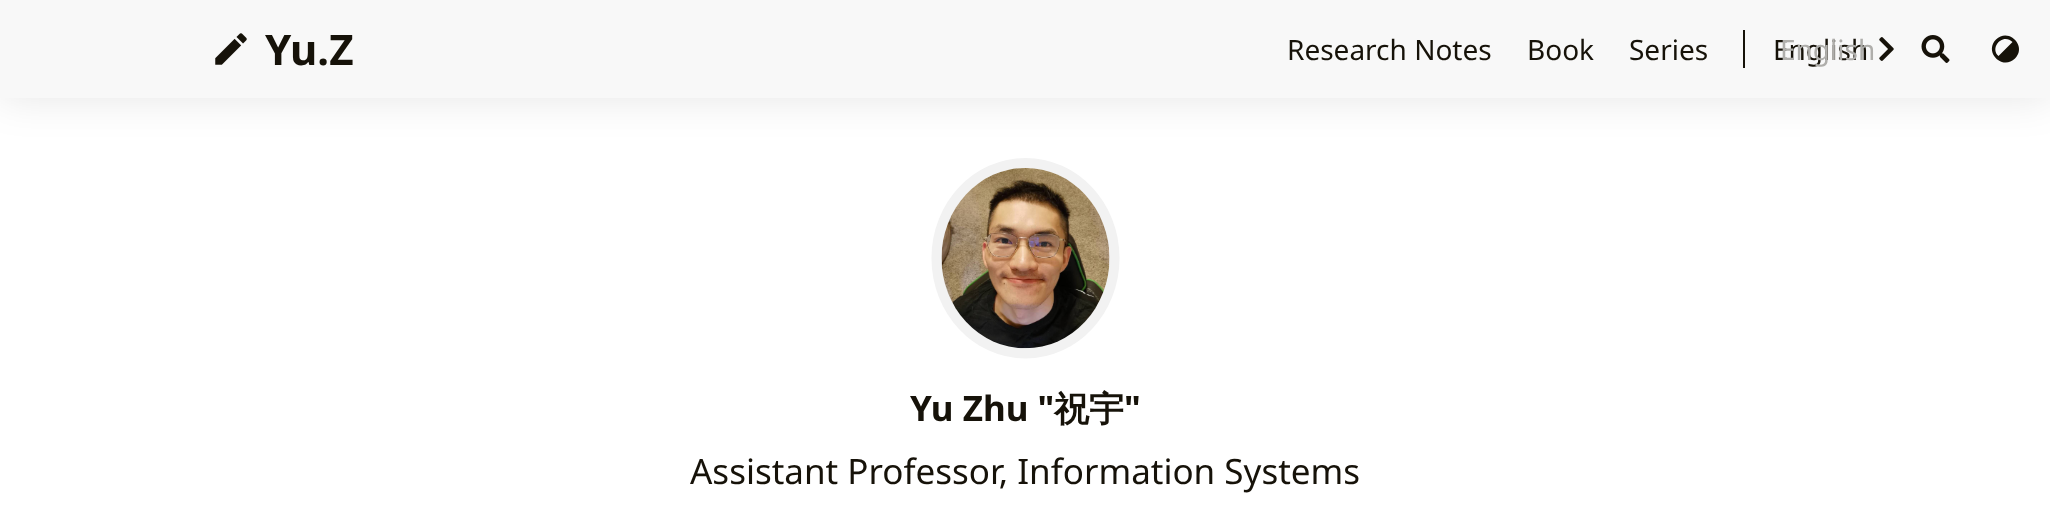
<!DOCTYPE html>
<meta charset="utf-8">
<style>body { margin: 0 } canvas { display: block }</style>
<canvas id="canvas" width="2050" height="510"></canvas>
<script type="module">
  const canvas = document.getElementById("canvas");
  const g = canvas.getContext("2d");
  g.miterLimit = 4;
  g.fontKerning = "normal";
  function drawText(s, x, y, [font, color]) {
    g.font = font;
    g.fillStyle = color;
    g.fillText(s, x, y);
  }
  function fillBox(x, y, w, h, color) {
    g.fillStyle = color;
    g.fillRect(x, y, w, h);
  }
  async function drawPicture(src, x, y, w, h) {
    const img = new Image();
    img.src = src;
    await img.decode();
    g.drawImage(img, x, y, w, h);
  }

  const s1 = ["bold 42px Noto Sans", "#161209"];
  const s2 = ["28px Noto Sans", "#161209"];
  const s3 = ["28px Noto Sans", "#AFAEAB"];
  const s4 = ["bold 35px Noto Sans", "#161209"];
  const s5 = ["bold 35px WenQuanYi Zen Hei", "#161209"];
  const s6 = ["35px Noto Sans", "#161209"];

  fillBox(0, 0, 2050, 510, "#FFFFFF");
  g.beginPath();
  g.moveTo(1025.5, 163);
  g.bezierCurveTo(1074.5, 163, 1114.5, 205.5, 1114.5, 258);
  g.bezierCurveTo(1114.5, 310.5, 1074.5, 353.5, 1025.5, 353.5);
  g.bezierCurveTo(976.5, 353.5, 936.5, 310.5, 936.5, 258);
  g.bezierCurveTo(936.5, 205.5, 976.5, 163, 1025.5, 163);
  g.closePath();
  g.strokeStyle = "#F2F2F2";
  g.lineWidth = 10.1;
  g.stroke();
  g.fillStyle = "rgba(0, 0, 0, 0.1)";
  g.filter = "blur(21px)";
  g.beginPath();
  g.rect(0, 0, 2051, 98);
  g.fill();
  g.filter = "none";
  fillBox(0, 0, 2050, 98, "#F8F8F8");
  await drawPicture("pic1.png", 215, 33, 32, 32);
  drawText("Yu.Z", 265, 65, s1);
  drawText("Research Notes", 1287, 60, s2);
  drawText("Book", 1527, 60, s2);
  drawText("Series", 1629, 60, s2);
  fillBox(1743, 30, 2, 38, "#161209");
  drawText("English", 1773, 60, s2);
  await drawPicture("pic2.png", 1879, 37, 15, 24);
  drawText("English", 1780, 60, s3);
  await drawPicture("pic3.png", 1921, 35, 29, 28);
  g.fillStyle = "#161209";
  g.beginPath();
  g.moveTo(2015, 58.5);
  g.bezierCurveTo(2027.5, 46, 2008.5, 27, 1996, 39.5);
  g.bezierCurveTo(1983.5, 52, 2002.5, 71, 2015, 58.5);
  g.closePath();
  g.moveTo(2012.5, 42);
  g.lineTo(1998.5, 56);
  g.bezierCurveTo(1989, 47, 2003.5, 32.5, 2012.5, 42);
  g.closePath();
  g.fill();
  await drawPicture("pic4.png", 941, 168, 169, 181);
  drawText("Yu Zhu \"", 910, 421, s4);
  drawText("祝宇", 1054, 421, s5);
  drawText("\"", 1124, 421, s4);
  drawText("Assistant Professor, Information Systems", 690, 484, s6);
</script>
